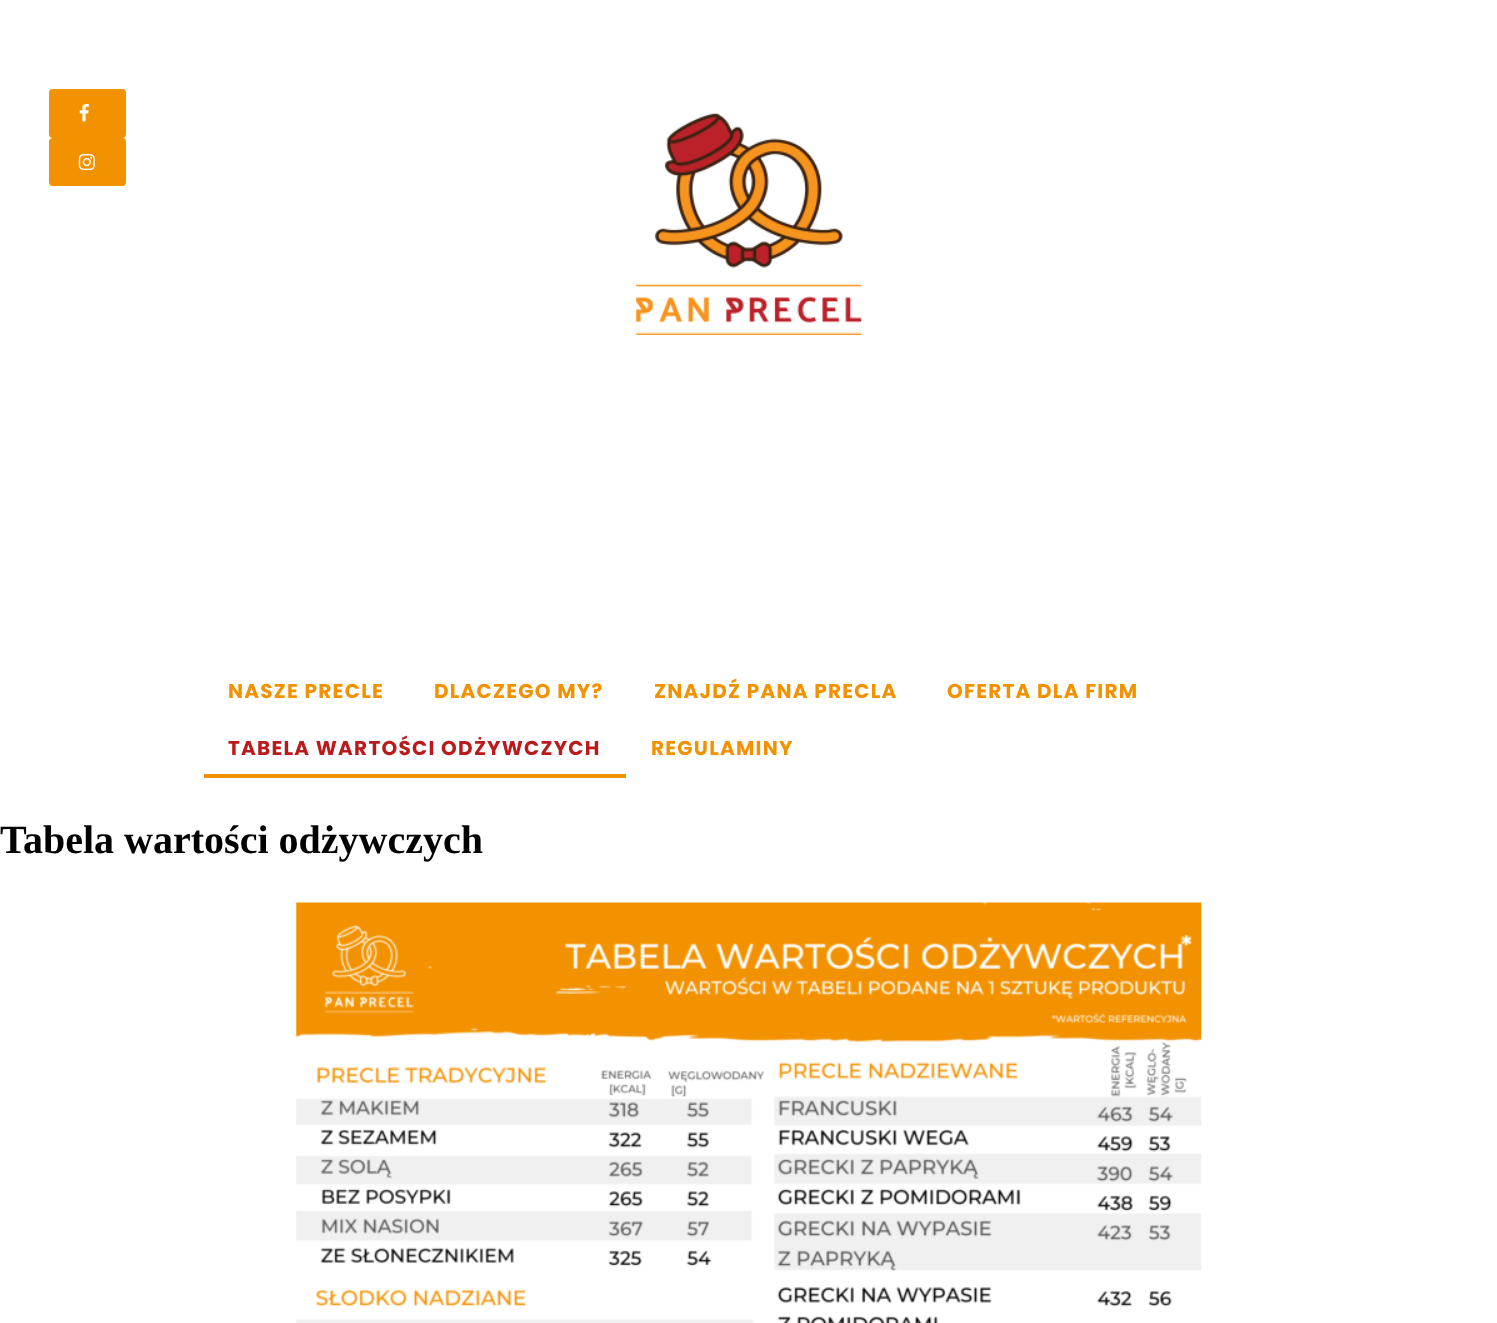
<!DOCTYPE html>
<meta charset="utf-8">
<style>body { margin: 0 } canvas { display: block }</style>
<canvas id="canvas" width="1497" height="1323"></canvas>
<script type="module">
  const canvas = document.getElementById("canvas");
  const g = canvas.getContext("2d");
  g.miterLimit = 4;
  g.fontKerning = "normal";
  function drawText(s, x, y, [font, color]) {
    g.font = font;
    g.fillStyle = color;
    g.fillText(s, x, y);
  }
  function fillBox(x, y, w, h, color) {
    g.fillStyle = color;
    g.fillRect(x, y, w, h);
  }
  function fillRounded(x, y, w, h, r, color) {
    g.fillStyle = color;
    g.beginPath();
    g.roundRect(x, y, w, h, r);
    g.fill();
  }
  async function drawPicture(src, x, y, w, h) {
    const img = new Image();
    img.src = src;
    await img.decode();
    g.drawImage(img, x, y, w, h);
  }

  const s1 = ["bold 20px Poppins", "#F39200"];
  const s2 = ["bold 20px Poppins", "#BA1A1B"];
  const s3 = ["bold 40px Liberation Serif", "#000000"];

  fillBox(0, 0, 1497, 1323, "#FFFFFF");
  fillRounded(49, 89, 77, 49, 4, "#F39200");
  await drawPicture("pic1.png", 79, 103, 10, 19);
  fillRounded(49, 138, 77, 48, 4, "#F39200");
  await drawPicture("pic2.png", 78, 154, 17, 17);
  await drawPicture("pic3.png", 636, 113, 226, 222);
  g.letterSpacing = "1.25px";
  drawText("NASZE PRECLE", 228, 698, s1);
  drawText("DLACZEGO MY?", 434, 698, s1);
  drawText("ZNAJDŹ PANA PRECLA", 654, 698, s1);
  drawText("OFERTA DLA FIRM", 947, 698, s1);
  drawText("TABELA WARTOŚCI ODŻYWCZYCH", 228, 755, s2);
  fillBox(204, 774, 422, 4, "#F39200");
  drawText("REGULAMINY", 651, 755, s1);
  g.letterSpacing = "0px";
  drawText("Tabela wartości odżywczych", 0, 853, s3);
  await drawPicture("pic4.png", 296, 902, 906, 421);
</script>
